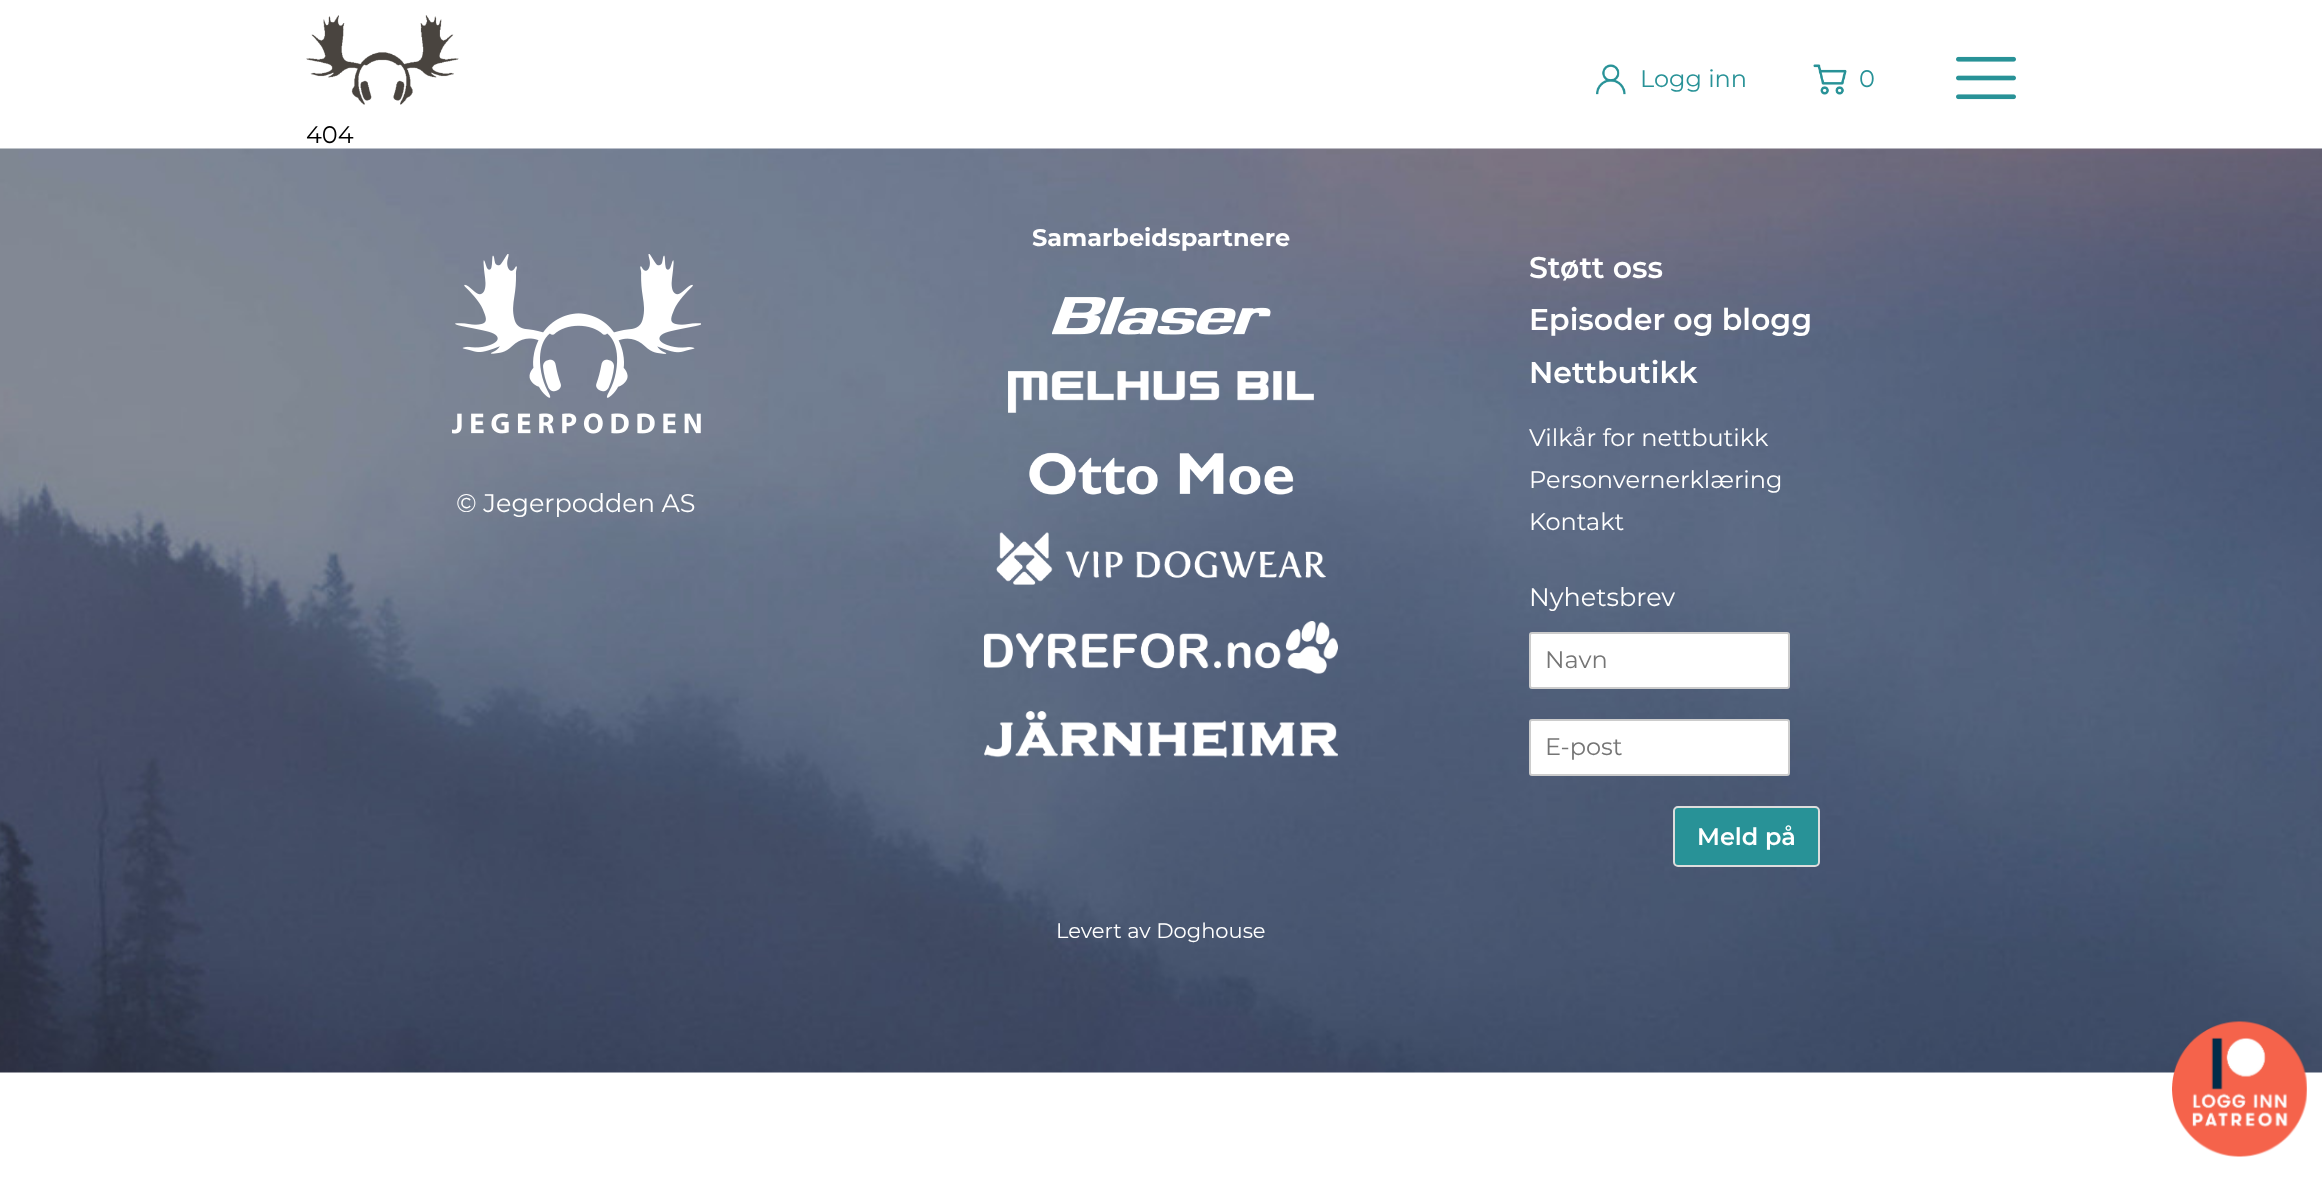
<!DOCTYPE html>
<meta charset="utf-8">
<style>body { margin: 0 } canvas { display: block }</style>
<canvas id="canvas" width="2322" height="1177"></canvas>
<script type="module">
  const canvas = document.getElementById("canvas");
  const g = canvas.getContext("2d");
  g.miterLimit = 4;
  g.fontKerning = "normal";
  function drawText(s, x, y, [font, color]) {
    g.font = font;
    g.fillStyle = color;
    g.fillText(s, x, y);
  }
  function fillBox(x, y, w, h, color) {
    g.fillStyle = color;
    g.fillRect(x, y, w, h);
  }
  async function drawPicture(src, x, y, w, h) {
    const img = new Image();
    img.src = src;
    await img.decode();
    g.drawImage(img, x, y, w, h);
  }

  const s1 = ["24px Montserrat", "#289297"];
  const s2 = ["24px Montserrat", "#000000"];
  const s3 = ["bold 24px Montserrat", "#FFFFFF"];
  const s4 = ["25.5px Montserrat", "#FFFFFF"];
  const s5 = ["600 30px Montserrat", "#FFFFFF"];
  const s6 = ["24px Montserrat", "#FFFFFF"];
  const s7 = ["24px Montserrat", "#757575"];
  const s8 = ["600 24px Montserrat", "#FFFFFF"];
  const s9 = ["21px Montserrat", "#FFFFFF"];

  fillBox(0, 0, 2322, 1177, "#FFFFFF");
  await drawPicture("pic1.png", 306, 15, 153, 90);
  await drawPicture("pic2.png", 1596, 64, 30, 31);
  drawText("Logg inn", 1640, 87, s1);
  await drawPicture("pic3.png", 1813, 64, 34, 31);
  drawText("0", 1859, 87, s1);
  await drawPicture("pic4.png", 1956, 56, 60, 44);
  drawText("404", 306, 143, s2);
  await drawPicture("pic5.png", 0, 148, 2322, 925);
  drawText("Samarbeidspartnere", 1032, 246, s3);
  await drawPicture("pic6.png", 1052, 297, 219, 38);
  await drawPicture("pic7.png", 1008, 371, 306, 42);
  await drawPicture("pic8.png", 1029, 452, 265, 43);
  await drawPicture("pic9.png", 996, 532, 330, 53);
  await drawPicture("pic10.png", 984, 621, 354, 53);
  await drawPicture("pic11.png", 984, 711, 354, 47);
  await drawPicture("pic12.png", 452, 254, 249, 180);
  drawText("© Jegerpodden AS", 456, 512, s4);
  drawText("Støtt oss", 1529, 278, s5);
  drawText("Episoder og blogg", 1529, 330, s5);
  drawText("Nettbutikk", 1529, 383, s5);
  drawText("Vilkår for nettbutikk", 1529, 446, s6);
  drawText("Personvernerklæring", 1529, 488, s6);
  drawText("Kontakt", 1529, 530, s6);
  drawText("Nyhetsbrev", 1529, 606, s4);
  g.beginPath();
  g.roundRect(1530, 633, 259, 55, 2);
  g.fill();
  g.strokeStyle = "#CCCCCC";
  g.lineWidth = 2;
  g.stroke();
  drawText("Navn", 1545, 668, s7);
  g.fillStyle = "#FFFFFF";
  g.beginPath();
  g.roundRect(1530, 720, 259, 55, 2);
  g.fill();
  g.stroke();
  drawText("E-post", 1545, 755, s7);
  g.fillStyle = "#289297";
  g.beginPath();
  g.roundRect(1674, 807, 145, 59, 4);
  g.fill();
  g.strokeStyle = "#DDDDDD";
  g.stroke();
  drawText("Meld på", 1697, 845, s8);
  drawText("Levert av Doghouse", 1056, 938, s9);
  await drawPicture("pic13.png", 2172, 1021, 135, 136);
</script>
